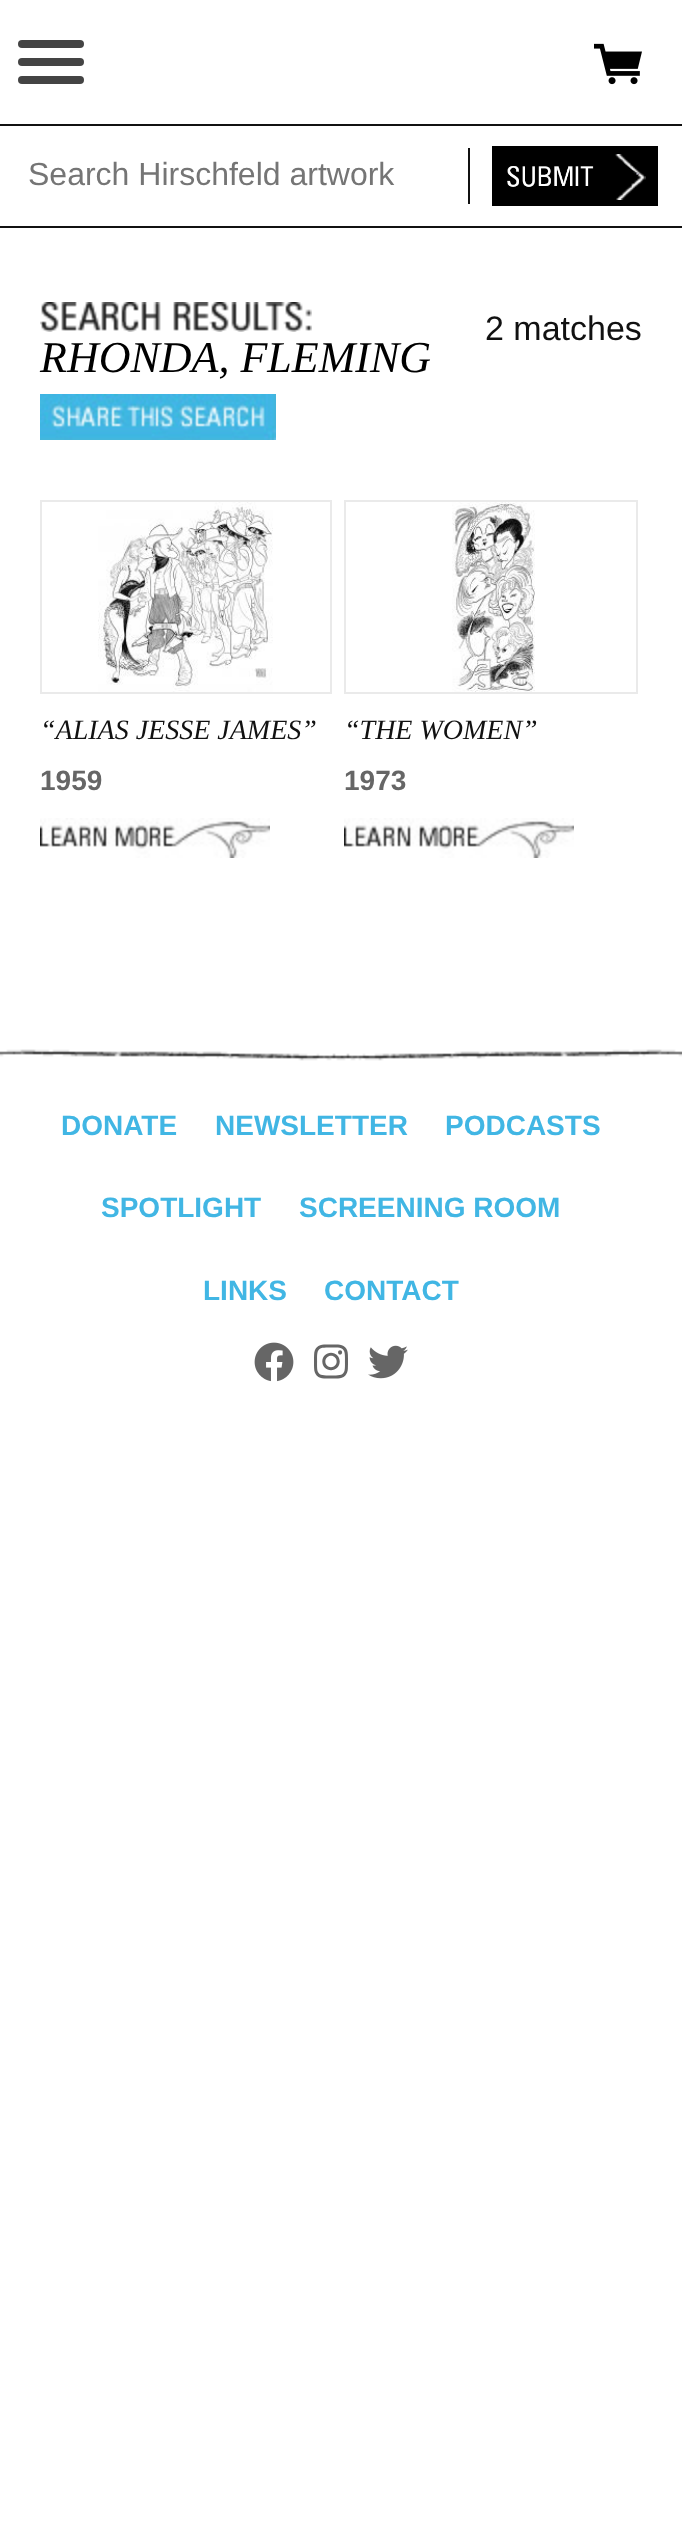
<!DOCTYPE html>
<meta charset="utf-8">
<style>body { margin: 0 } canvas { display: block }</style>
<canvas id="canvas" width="682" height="2548"></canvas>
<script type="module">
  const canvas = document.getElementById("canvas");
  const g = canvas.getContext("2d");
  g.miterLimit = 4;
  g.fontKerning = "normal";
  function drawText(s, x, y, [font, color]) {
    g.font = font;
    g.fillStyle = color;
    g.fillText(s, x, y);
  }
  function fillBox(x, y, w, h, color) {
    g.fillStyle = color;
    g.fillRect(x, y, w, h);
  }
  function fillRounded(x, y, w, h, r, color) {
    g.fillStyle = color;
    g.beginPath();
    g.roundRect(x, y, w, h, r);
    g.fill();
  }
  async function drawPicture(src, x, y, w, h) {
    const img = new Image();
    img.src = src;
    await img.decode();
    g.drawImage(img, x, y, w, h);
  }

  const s1 = ["32px Liberation Sans", "#757575"];
  const s2 = ["34px Liberation Sans", "#111111"];
  const s3 = ["italic 44px Liberation Serif", "#000000"];
  const s4 = ["italic 28px Liberation Serif", "#111111"];
  const s5 = ["bold 28px Liberation Sans", "#666666"];
  const s6 = ["bold 28px Liberation Sans", "#41B6E4"];

  fillBox(0, 0, 682, 2548, "#FFFFFF");
  fillRounded(18, 40, 66, 8, 4, "#444444");
  fillRounded(18, 58, 66, 8, 4, "#444444");
  fillRounded(18, 76, 66, 8, 4, "#444444");
  await drawPicture("pic1.png", 594, 43, 48, 42);
  fillBox(0, 124, 682, 2, "#111111");
  fillBox(0, 226, 682, 2, "#111111");
  fillBox(468, 148, 2, 56, "#111111");
  drawText("Search Hirschfeld artwork", 28, 185, s1);
  await drawPicture("pic2.png", 492, 146, 166, 60);
  drawText("2 matches", 485, 340, s2);
  await drawPicture("pic3.png", 40, 302, 272, 30);
  drawText("RHONDA, FLEMING", 40, 372, s3);
  await drawPicture("pic4.png", 40, 394, 236, 46);
  g.strokeStyle = "#EAEAEA";
  g.lineWidth = 2;
  g.strokeRect(41, 501, 290, 192);
  await drawPicture("pic5.png", 98, 502, 175, 190);
  drawText("“ALIAS JESSE JAMES”", 40, 739, s4);
  drawText("1959", 40, 790, s5);
  await drawPicture("pic6.png", 40, 818, 230, 40);
  g.strokeRect(345, 501, 292, 192);
  await drawPicture("pic7.png", 452, 502, 83, 190);
  drawText("“THE WOMEN”", 344, 739, s4);
  drawText("1973", 344, 790, s5);
  await drawPicture("pic6.png", 344, 818, 230, 40);
  await drawPicture("pic8.png", 0, 1049, 682, 12);
  drawText("DONATE", 61, 1135, s6);
  drawText("NEWSLETTER", 215, 1135, s6);
  drawText("PODCASTS", 445, 1135, s6);
  drawText("SPOTLIGHT", 101, 1217, s6);
  drawText("SCREENING ROOM", 299, 1217, s6);
  drawText("LINKS", 203, 1300, s6);
  drawText("CONTACT", 324, 1300, s6);
  await drawPicture("pic9.png", 254, 1342, 40, 40);
  await drawPicture("pic10.png", 314, 1344, 34, 35);
  await drawPicture("pic11.png", 368, 1345, 40, 34);
</script>
